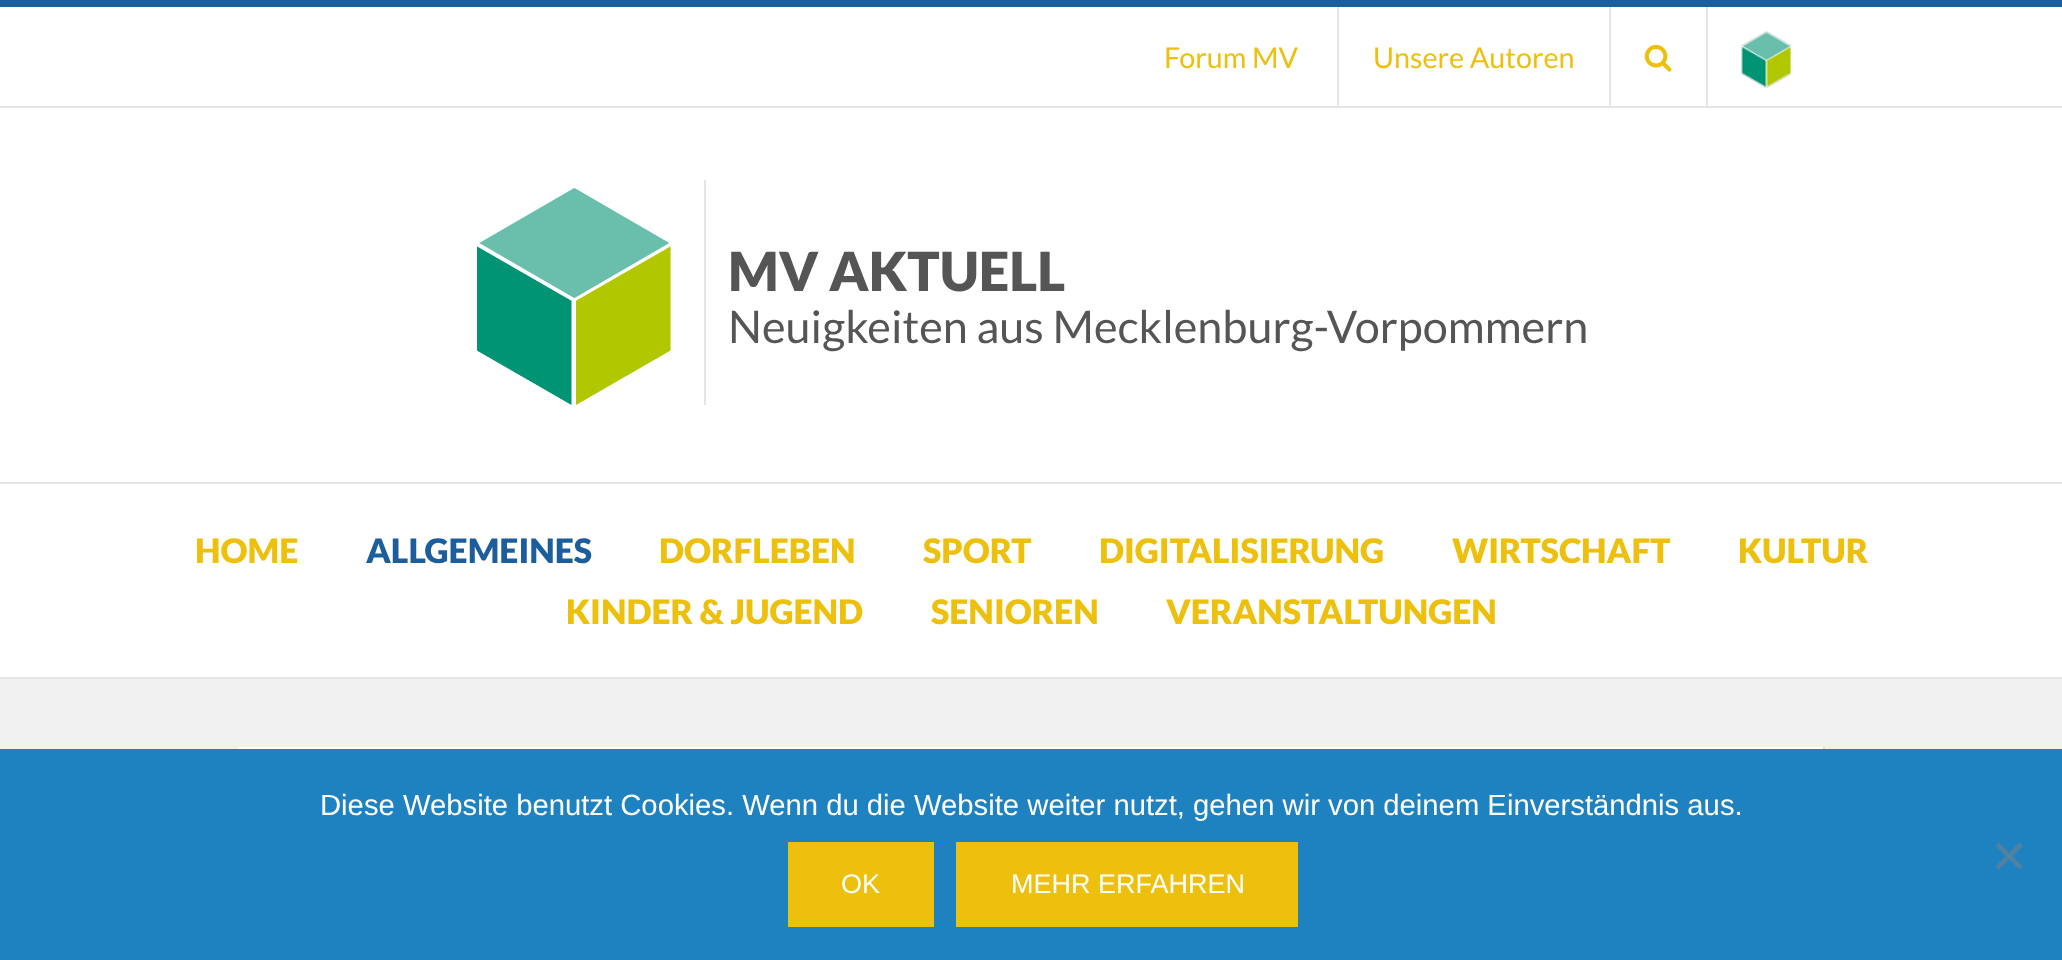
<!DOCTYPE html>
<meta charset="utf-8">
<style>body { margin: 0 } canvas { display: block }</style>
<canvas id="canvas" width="2062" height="960"></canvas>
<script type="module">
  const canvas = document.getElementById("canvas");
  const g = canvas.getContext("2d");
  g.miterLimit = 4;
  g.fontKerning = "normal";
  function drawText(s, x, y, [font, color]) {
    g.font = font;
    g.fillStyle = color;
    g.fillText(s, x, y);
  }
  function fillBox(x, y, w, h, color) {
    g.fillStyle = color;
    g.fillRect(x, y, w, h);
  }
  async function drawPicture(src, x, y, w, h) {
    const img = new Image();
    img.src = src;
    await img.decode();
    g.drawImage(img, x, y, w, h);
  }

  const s1 = ["28.75px Lato", "#EDC00E"];
  const s2 = ["900 54px Lato", "#555555"];
  const s3 = ["45px Lato", "#555555"];
  const s4 = ["900 33.75px Lato", "#EDC00E"];
  const s5 = ["900 33.75px Lato", "#1C5E9C"];
  const s6 = ["29.25px Liberation Sans", "#FFFFFF"];
  const s7 = ["27px Liberation Sans", "#FFFFFF"];

  fillBox(0, 0, 2062, 960, "#F1F1F1");
  fillBox(0, 7, 2062, 99, "#FFFFFF");
  fillBox(0, 0, 2062, 7, "#1C5E9C");
  fillBox(0, 106, 2062, 2, "#E5E5E5");
  drawText("Forum MV", 1164, 68, s1);
  fillBox(1337, 7, 2, 99, "#E5E5E5");
  drawText("Unsere Autoren", 1373, 68, s1);
  fillBox(1609, 7, 2, 99, "#E5E5E5");
  await drawPicture("pic1.png", 1644, 44, 28, 28);
  fillBox(1706, 7, 2, 99, "#E5E5E5");
  await drawPicture("pic2.png", 1741, 31, 50, 57);
  fillBox(0, 108, 2062, 374, "#FFFFFF");
  await drawPicture("pic3.png", 477, 188, 194, 217);
  fillBox(704, 180, 2, 225, "#E5E5E5");
  drawText("MV AKTUELL", 728, 291, s2);
  drawText("Neuigkeiten aus Mecklenburg-Vorpommern", 728, 343, s3);
  fillBox(0, 484, 2062, 193, "#FFFFFF");
  fillBox(0, 482, 2062, 2, "#E5E5E5");
  fillBox(0, 677, 2062, 2, "#E5E5E5");
  drawText("HOME", 195, 563, s4);
  drawText("ALLGEMEINES", 366, 563, s5);
  drawText("DORFLEBEN", 659, 563, s4);
  drawText("SPORT", 923, 563, s4);
  drawText("DIGITALISIERUNG", 1099, 563, s4);
  drawText("WIRTSCHAFT", 1452, 563, s4);
  drawText("KULTUR", 1738, 563, s4);
  drawText("KINDER & JUGEND", 566, 624, s4);
  drawText("SENIOREN", 931, 624, s4);
  drawText("VERANSTALTUNGEN", 1166, 624, s4);
  fillBox(239, 747, 1584, 2, "#FFFFFF");
  fillBox(1823, 747, 2, 2, "#DFDFDD");
  fillBox(0, 749, 2062, 211, "#1F82C0");
  drawText("Diese Website benutzt Cookies. Wenn du die Website weiter nutzt, gehen wir von deinem Einverständnis aus.", 320, 815, s6);
  g.fillStyle = "#5081A0";
  g.beginPath();
  g.moveTo(2019.5, 842.5);
  g.lineTo(2023, 846);
  g.lineTo(1999, 869.5);
  g.lineTo(1995.5, 866.5);
  g.closePath();
  g.fill();
  g.beginPath();
  g.moveTo(1995.5, 846);
  g.lineTo(1999, 842.5);
  g.lineTo(2023, 866.5);
  g.lineTo(2019.5, 869.5);
  g.closePath();
  g.fill();
  fillBox(788, 842, 146, 85, "#EDC00E");
  drawText("OK", 841, 893, s7);
  fillBox(956, 842, 342, 85, "#EDC00E");
  drawText("MEHR ERFAHREN", 1011, 893, s7);
</script>
